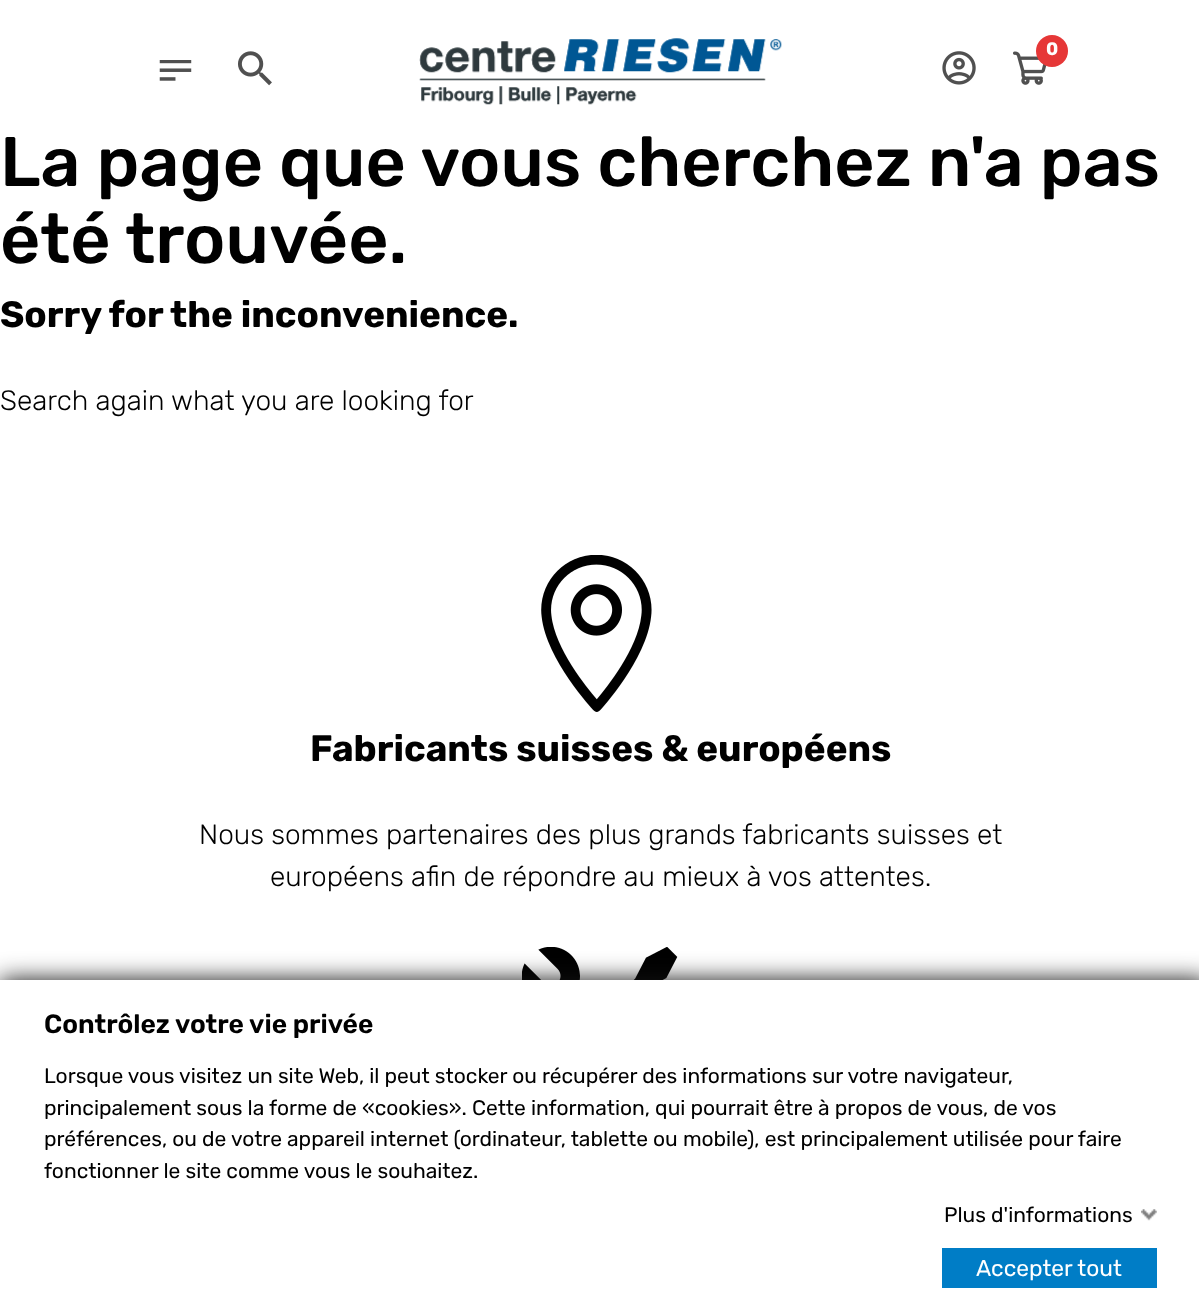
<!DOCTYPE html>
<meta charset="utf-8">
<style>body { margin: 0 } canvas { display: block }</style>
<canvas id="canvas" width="1199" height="1308"></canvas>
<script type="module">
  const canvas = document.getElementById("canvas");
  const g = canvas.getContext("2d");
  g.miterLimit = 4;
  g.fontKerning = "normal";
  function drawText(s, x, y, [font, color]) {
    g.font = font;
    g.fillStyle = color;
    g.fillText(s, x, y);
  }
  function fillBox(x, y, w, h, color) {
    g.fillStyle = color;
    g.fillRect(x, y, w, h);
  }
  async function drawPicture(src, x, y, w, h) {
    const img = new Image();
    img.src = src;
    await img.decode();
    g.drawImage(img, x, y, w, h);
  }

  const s1 = ["bold 18px Rubik", "#FFFFFF"];
  const s2 = ["500 70px Rubik", "#000000"];
  const s3 = ["bold 36.75px Rubik", "#000000"];
  const s4 = ["300 28px Rubik", "#000000"];
  const s5 = ["600 26.25px Rubik", "#000000"];
  const s6 = ["21px Rubik", "#000000"];
  const s7 = ["22.75px Rubik", "#FFFFFF"];

  fillBox(0, 0, 1199, 1308, "#FFFFFF");
  await drawPicture("pic1.png", 419, 38, 363, 67);
  await drawPicture("pic2.png", 1013, 51, 34, 34);
  g.fillStyle = "#E63737";
  g.beginPath();
  g.arc(1052, 51, 16, 0, Math.PI * 2);
  g.fill();
  drawText("0", 1046, 55, s1);
  await drawPicture("pic3.png", 159, 60, 33, 21);
  await drawPicture("pic4.png", 238, 51, 34, 35);
  await drawPicture("pic5.png", 942, 51, 34, 34);
  drawText("La page que vous cherchez n'a pas", 0, 186, s2);
  drawText("été trouvée.", 0, 263, s2);
  drawText("Sorry for the inconvenience.", 0, 327, s3);
  drawText("Search again what you are looking for", 0, 410, s4);
  await drawPicture("pic6.png", 541, 555, 111, 157);
  drawText("Fabricants suisses & européens", 310, 761, s3);
  drawText("Nous sommes partenaires des plus grands fabricants suisses et", 199, 844, s4);
  drawText("européens afin de répondre au mieux à vos attentes.", 270, 886, s4);
  await drawPicture("pic7.png", 522, 947, 156, 33);
  g.fillStyle = "#121212";
  g.filter = "blur(12px)";
  g.beginPath();
  g.rect(0, 980, 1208, 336);
  g.fill();
  g.filter = "none";
  fillBox(0, 980, 1199, 328, "#FFFFFF");
  drawText("Contrôlez votre vie privée", 44, 1033, s5);
  drawText("Lorsque vous visitez un site Web, il peut stocker ou récupérer des informations sur votre navigateur,", 44, 1083, s6);
  drawText("principalement sous la forme de «cookies». Cette information, qui pourrait être à propos de vous, de vos", 44, 1115, s6);
  drawText("préférences, ou de votre appareil internet (ordinateur, tablette ou mobile), est principalement utilisée pour faire", 44, 1146, s6);
  drawText("fonctionner le site comme vous le souhaitez.", 44, 1178, s6);
  drawText("Plus d'informations", 944, 1222, s6);
  await drawPicture("pic8.png", 1141, 1209, 16, 12);
  fillBox(942, 1248, 215, 40, "#007DC6");
  drawText("Accepter tout", 976, 1276, s7);
</script>
